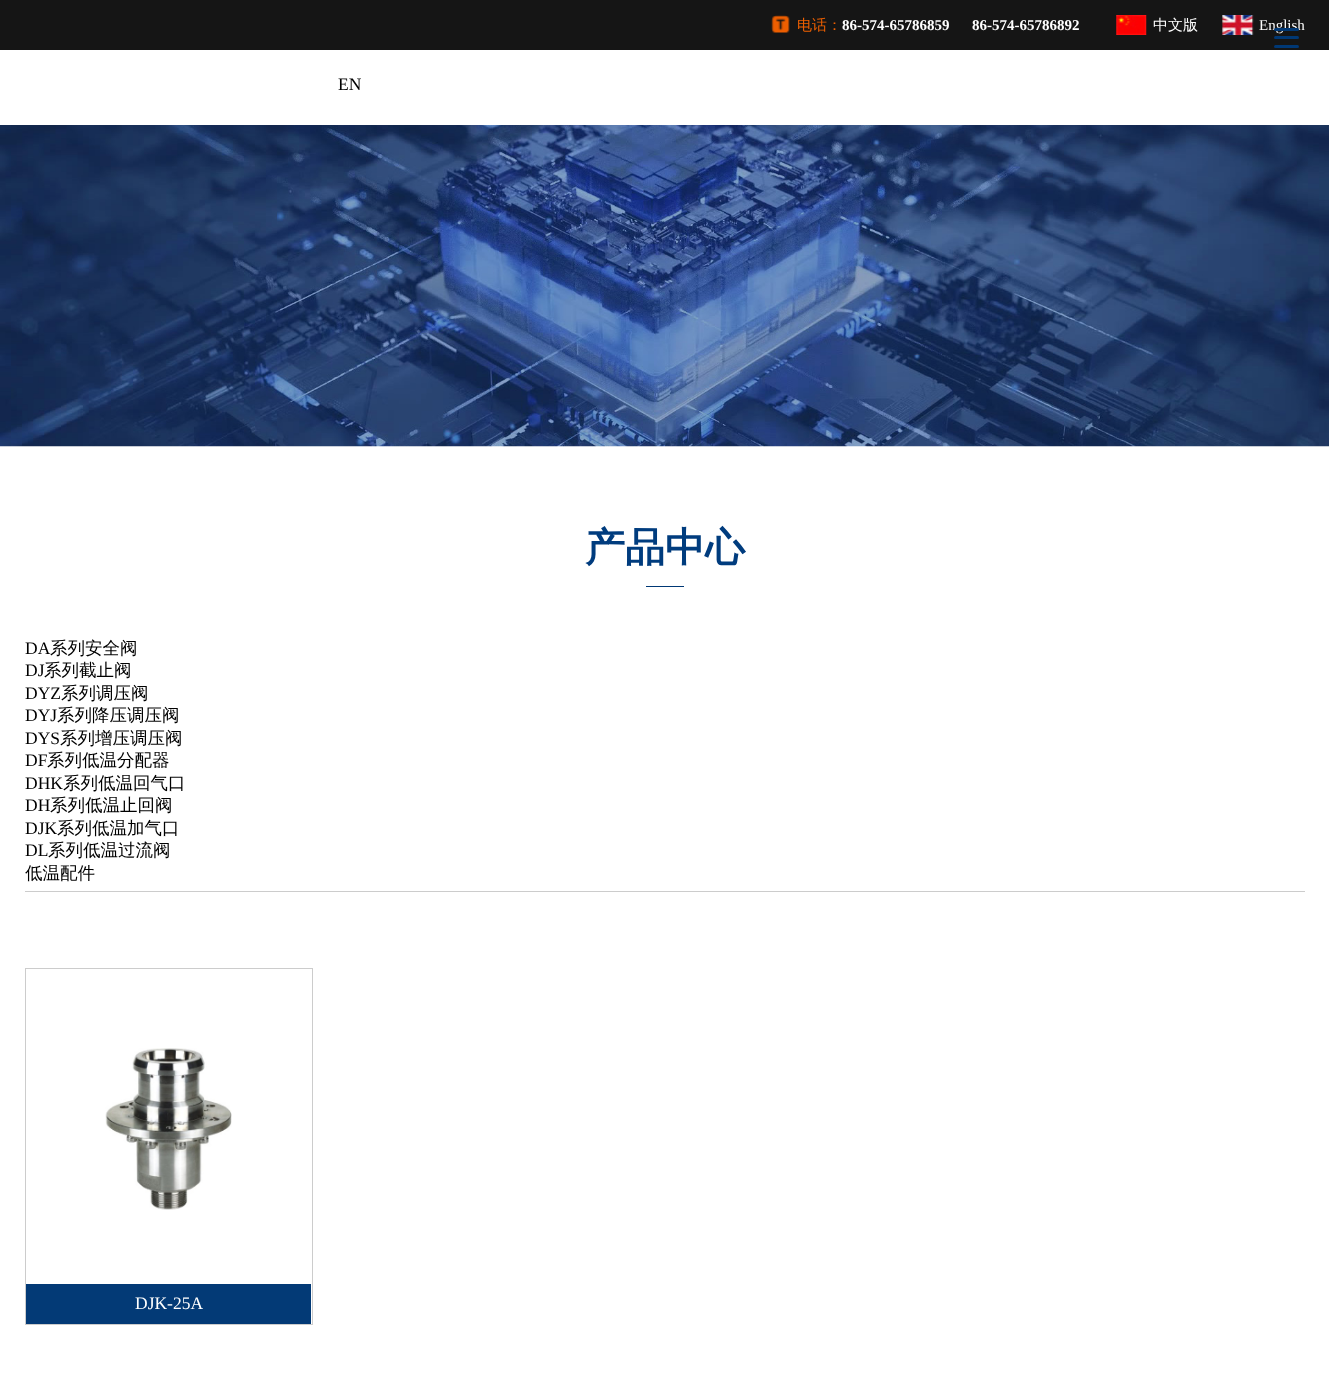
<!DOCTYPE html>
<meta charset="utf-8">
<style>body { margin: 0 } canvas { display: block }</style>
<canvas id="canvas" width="1329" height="1392"></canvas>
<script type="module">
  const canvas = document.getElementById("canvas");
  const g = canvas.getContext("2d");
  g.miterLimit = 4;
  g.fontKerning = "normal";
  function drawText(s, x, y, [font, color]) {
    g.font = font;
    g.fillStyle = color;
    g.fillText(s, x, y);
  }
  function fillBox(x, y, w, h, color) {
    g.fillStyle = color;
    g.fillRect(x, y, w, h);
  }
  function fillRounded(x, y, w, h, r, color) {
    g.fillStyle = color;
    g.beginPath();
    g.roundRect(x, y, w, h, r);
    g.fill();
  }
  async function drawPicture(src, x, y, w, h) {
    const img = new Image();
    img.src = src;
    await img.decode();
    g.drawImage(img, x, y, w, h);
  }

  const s1 = ["500 15px WenQuanYi Zen Hei", "#EF6000"];
  const s2 = ["bold 15px Liberation Serif", "#FFFFFF"];
  const s3 = ["500 15px WenQuanYi Zen Hei", "#FFFFFF"];
  const s4 = ["15px Liberation Serif", "#FFFFFF"];
  const s5 = ["17.5px Liberation Serif", "#000000"];
  const s6 = ["bold 40px WenQuanYi Zen Hei", "#003C7E"];
  const s7 = ["500 17.5px WenQuanYi Zen Hei", "#000000"];
  const s8 = ["17.5px Liberation Serif", "#FFFFFF"];

  fillBox(0, 0, 1329, 1392, "#FFFFFF");
  fillBox(0, 0, 1329, 50, "#151515");
  await drawPicture("pic1.png", 771, 15, 19, 18);
  drawText("电话：", 797, 30, s1);
  drawText("86-574-65786859      86-574-65786892", 842, 30, s2);
  await drawPicture("pic2.png", 1116, 15, 31, 20);
  drawText("中文版", 1153, 30, s3);
  await drawPicture("pic3.png", 1222, 15, 32, 20);
  drawText("English", 1259, 30, s4);
  fillRounded(1274, 28, 25, 3, 1.5, "#003875");
  fillRounded(1274, 36, 25, 3, 1.5, "#003875");
  fillRounded(1274, 45, 25, 3, 1.5, "#003875");
  drawText("EN", 338, 90, s5);
  await drawPicture("pic4.png", 0, 125, 1329, 322);
  drawText("产品中心", 585, 561, s6);
  fillBox(646, 586, 38, 1, "#003875");
  drawText("DA", 25, 654, s5);
  drawText("系列安全阀", 50, 654, s7);
  drawText("DJ", 25, 676, s5);
  drawText("系列截止阀", 44, 676, s7);
  drawText("DYZ", 25, 699, s5);
  drawText("系列调压阀", 61, 699, s7);
  drawText("DYJ", 25, 721, s5);
  drawText("系列降压调压阀", 57, 721, s7);
  drawText("DYS", 25, 744, s5);
  drawText("系列增压调压阀", 60, 744, s7);
  drawText("DF", 25, 766, s5);
  drawText("系列低温分配器", 47, 766, s7);
  drawText("DHK", 25, 789, s5);
  drawText("系列低温回气口", 63, 789, s7);
  drawText("DH", 25, 811, s5);
  drawText("系列低温止回阀", 50, 811, s7);
  drawText("DJK", 25, 834, s5);
  drawText("系列低温加气口", 57, 834, s7);
  drawText("DL", 25, 856, s5);
  drawText("系列低温过流阀", 48, 856, s7);
  drawText("低温配件", 25, 879, s7);
  fillBox(25, 891, 1280, 1, "#CCCCCC");
  g.strokeStyle = "#CCCCCC";
  g.strokeRect(25.5, 968.5, 287, 356);
  await drawPicture("pic5.png", 105, 1048, 127, 162);
  fillBox(26, 1284, 285, 40, "#033A76");
  drawText("DJK-25A", 135, 1309, s8);
</script>
